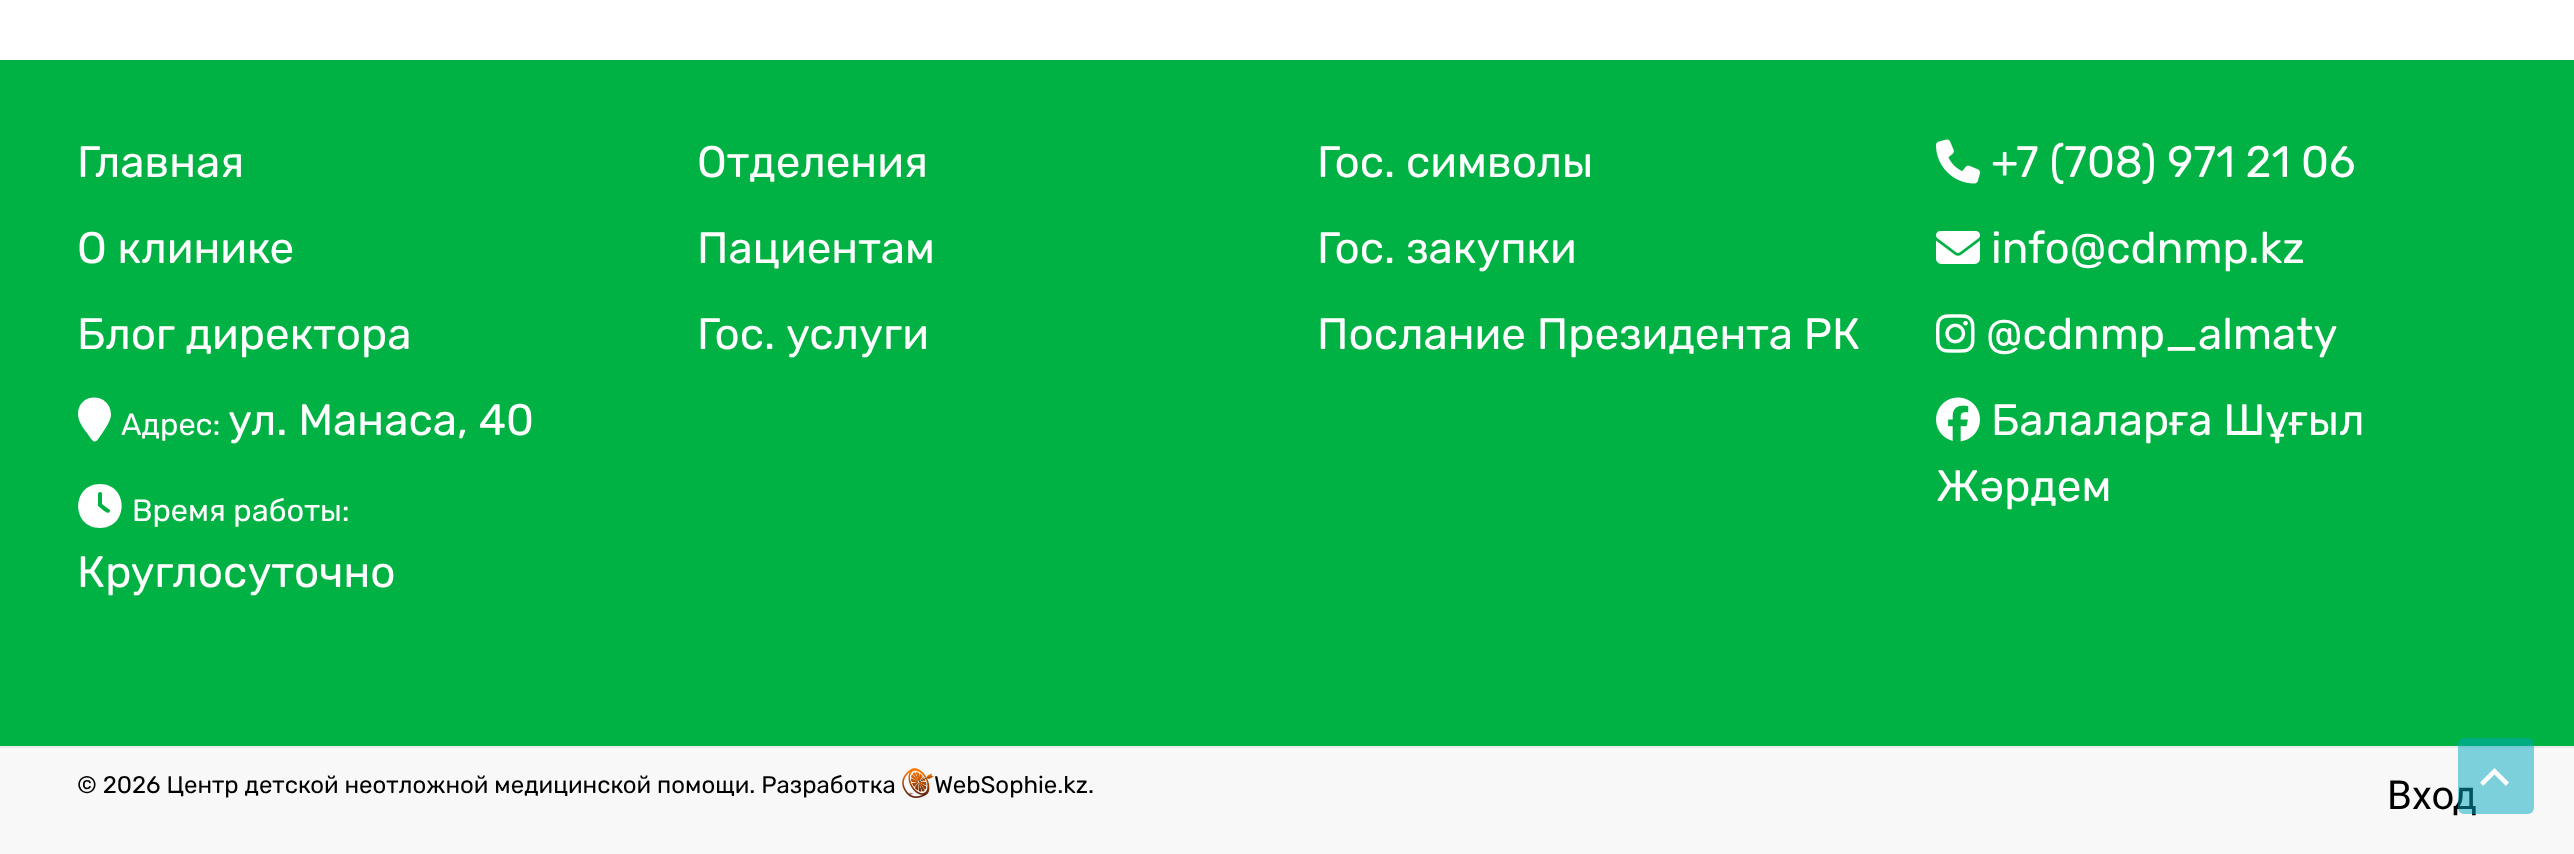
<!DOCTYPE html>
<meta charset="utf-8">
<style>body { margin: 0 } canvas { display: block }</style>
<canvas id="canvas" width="2574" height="854"></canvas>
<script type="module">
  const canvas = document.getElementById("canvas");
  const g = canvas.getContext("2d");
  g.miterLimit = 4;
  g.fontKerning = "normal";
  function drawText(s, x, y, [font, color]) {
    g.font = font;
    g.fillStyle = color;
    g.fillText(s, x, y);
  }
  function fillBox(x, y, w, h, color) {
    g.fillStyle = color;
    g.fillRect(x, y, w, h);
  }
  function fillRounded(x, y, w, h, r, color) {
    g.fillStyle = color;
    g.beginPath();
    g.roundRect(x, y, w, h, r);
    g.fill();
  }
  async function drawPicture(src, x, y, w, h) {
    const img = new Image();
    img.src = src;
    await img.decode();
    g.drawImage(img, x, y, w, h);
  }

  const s1 = ["300 44px Rubik", "#FFFFFF"];
  const s2 = ["300 30.75px Rubik", "#FFFFFF"];
  const s3 = ["300 24px Rubik", "#000000"];
  const s4 = ["40px Roboto", "#000000"];

  fillBox(0, 0, 2574, 854, "#FFFFFF");
  fillBox(0, 60, 2574, 686, "#00B243");
  drawText("Главная", 77, 177, s1);
  drawText("О клинике", 77, 263, s1);
  drawText("Блог директора", 77, 349, s1);
  g.beginPath();
  g.moveTo(111, 414);
  g.bezierCurveTo(111, 420, 107, 426, 103, 432);
  g.bezierCurveTo(95, 444, 95, 445, 87, 433);
  g.bezierCurveTo(83, 428, 78, 421, 78, 414);
  g.bezierCurveTo(78, 392, 110, 392, 111, 414);
  g.closePath();
  g.fill();
  drawText("Адрес:", 121, 435, s2);
  drawText("ул. Манаса, 40", 228, 435, s1);
  g.beginPath();
  g.moveTo(100, 484);
  g.bezierCurveTo(129, 484, 129, 528, 100, 528);
  g.bezierCurveTo(71, 528, 71, 484, 100, 484);
  g.closePath();
  g.moveTo(98, 494);
  g.lineTo(98, 506);
  g.lineTo(103, 510);
  g.bezierCurveTo(104, 511, 109, 515, 110, 511);
  g.lineTo(110, 510);
  g.lineTo(102, 504);
  g.lineTo(102, 493);
  g.bezierCurveTo(101, 491, 98, 492, 98, 494);
  g.closePath();
  g.fill();
  drawText("Время работы:", 132, 521, s2);
  drawText("Круглосуточно", 77, 587, s1);
  drawText("Отделения", 697, 177, s1);
  drawText("Пациентам", 697, 263, s1);
  drawText("Гос. услуги", 697, 349, s1);
  drawText("Гос. символы", 1317, 177, s1);
  drawText("Гос. закупки", 1317, 263, s1);
  drawText("Послание Президента РК", 1317, 349, s1);
  await drawPicture("pic1.png", 1936, 139, 44, 45);
  drawText("+7 (708) 971 21 06", 1991, 177, s1);
  await drawPicture("pic2.png", 1936, 231, 44, 33);
  drawText("info@cdnmp.kz", 1991, 263, s1);
  await drawPicture("pic3.png", 1936, 314, 39, 39);
  drawText("@cdnmp_almaty", 1986, 349, s1);
  await drawPicture("pic4.png", 1936, 397, 44, 45);
  drawText("Балаларға Шұғыл", 1991, 435, s1);
  drawText("Жәрдем", 1936, 501, s1);
  fillBox(0, 748, 2574, 106, "#F8F8F8");
  fillBox(0, 746, 2574, 2, "#EAEAEA");
  drawText("© 2026 Центр детской неотложной медицинской помощи. Разработка", 77, 793, s3);
  await drawPicture("pic5.png", 902, 768, 32, 30);
  drawText("WebSophie.kz.", 934, 793, s3);
  drawText("Вход", 2387, 809, s4);
  fillRounded(2458, 738, 76, 76, 6, "rgba(0, 167, 192, 0.5)");
  g.fillStyle = "#FCFCFC";
  g.beginPath();
  g.moveTo(2506, 786);
  g.lineTo(2494.5, 774.5);
  g.lineTo(2483, 786);
  g.lineTo(2480, 782.5);
  g.lineTo(2494.5, 768);
  g.lineTo(2509, 782.5);
  g.closePath();
  g.fill();
</script>
